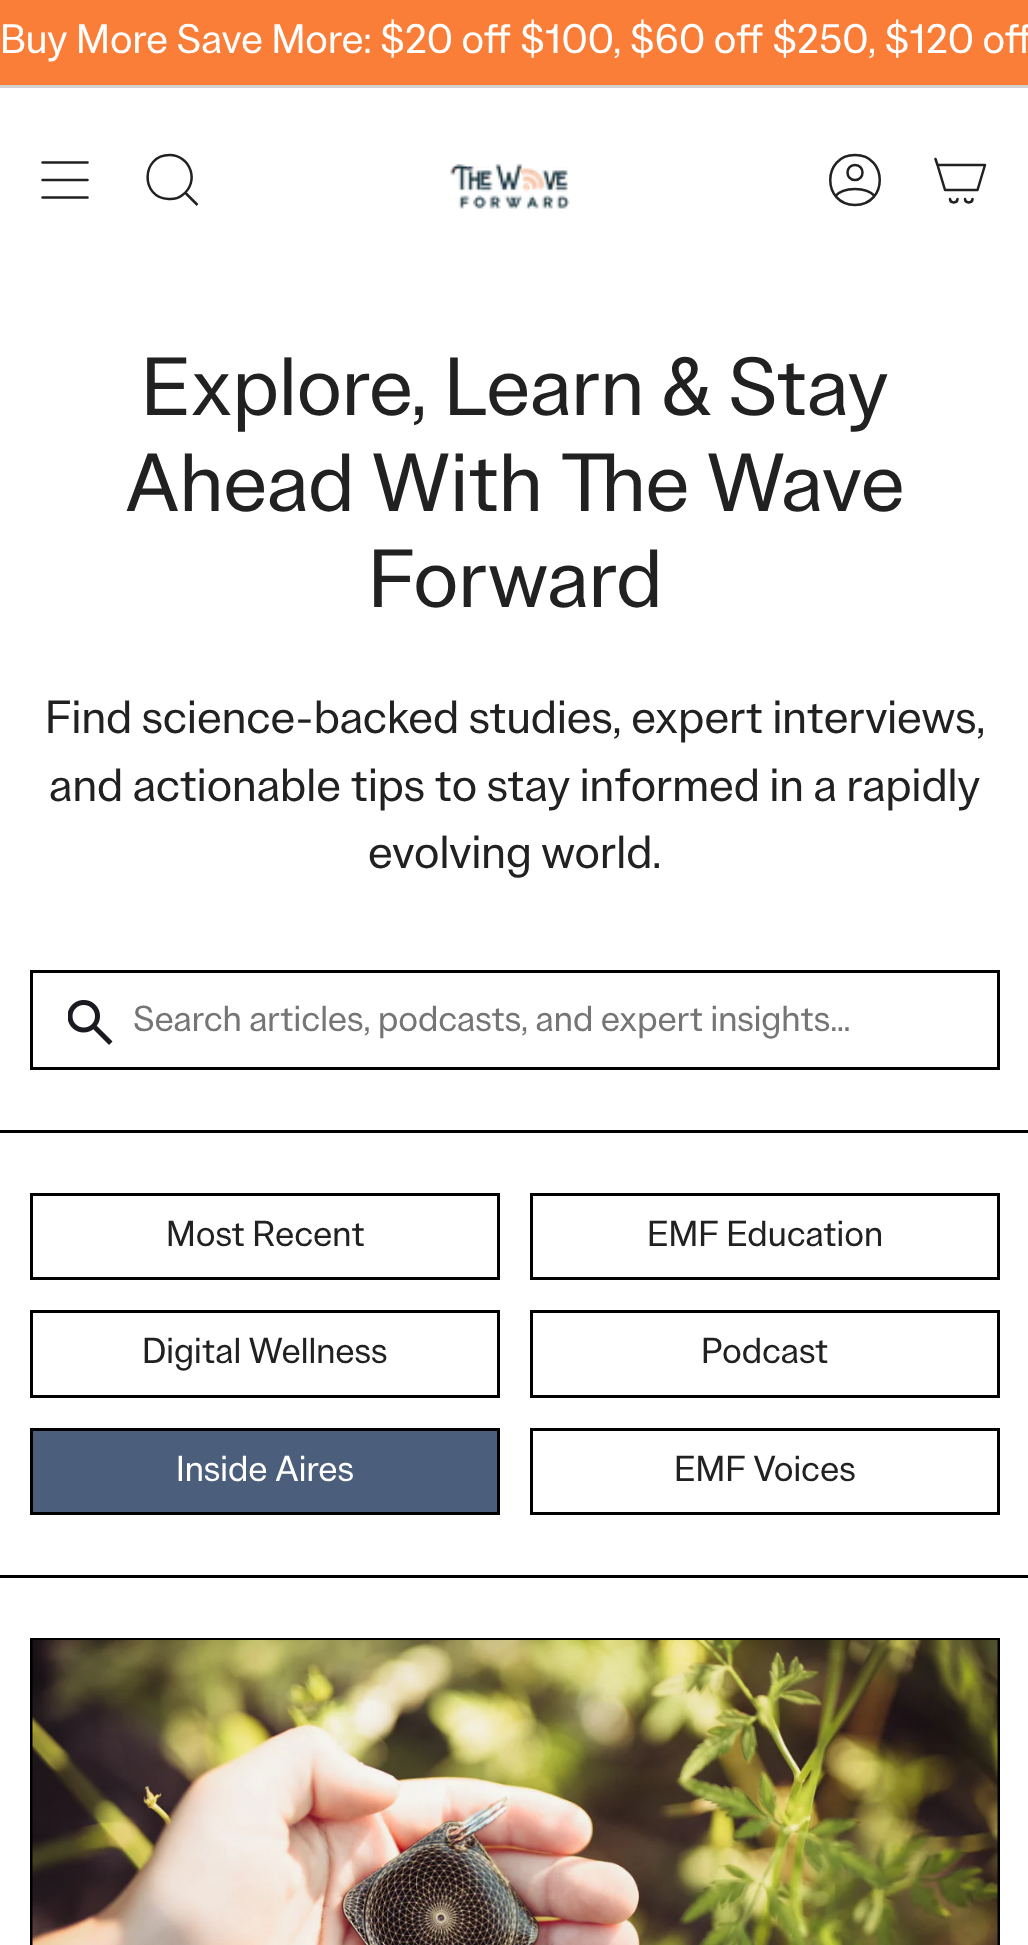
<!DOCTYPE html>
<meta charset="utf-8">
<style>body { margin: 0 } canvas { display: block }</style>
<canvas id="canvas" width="1028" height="1945"></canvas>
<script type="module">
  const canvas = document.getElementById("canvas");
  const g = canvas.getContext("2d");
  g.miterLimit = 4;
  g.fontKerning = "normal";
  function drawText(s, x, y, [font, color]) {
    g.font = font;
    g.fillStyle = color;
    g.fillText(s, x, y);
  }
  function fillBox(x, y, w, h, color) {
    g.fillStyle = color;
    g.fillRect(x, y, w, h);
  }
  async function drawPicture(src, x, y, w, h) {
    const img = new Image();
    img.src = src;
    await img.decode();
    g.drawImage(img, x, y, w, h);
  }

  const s1 = ["40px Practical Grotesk", "#FFFFFF"];
  const s2 = ["80px Practical Grotesk", "#212121"];
  const s3 = ["45px Practical Grotesk", "#212121"];
  const s4 = ["35px Practical Grotesk", "#757575"];
  const s5 = ["35px Practical Grotesk", "#212121"];
  const s6 = ["35px Practical Grotesk", "#FFFFFF"];

  fillBox(0, 0, 1028, 1945, "#FFFFFF");
  fillBox(0, 0, 1028, 85, "#FA7D38");
  fillBox(0, 85, 1028, 3, "#D1D0CE");
  drawText("Buy More Save More: $20 off $100, $60 off $250, $120 off", 0, 53, s1);
  g.beginPath();
  g.moveTo(42.5, 162.5);
  g.lineTo(87.5, 162.5);
  g.moveTo(42.5, 180);
  g.lineTo(87.5, 180);
  g.moveTo(42.5, 197.5);
  g.lineTo(87.5, 197.5);
  g.strokeStyle = "#212121";
  g.lineWidth = 2.5;
  g.lineCap = "round";
  g.lineJoin = "round";
  g.stroke();
  g.beginPath();
  g.moveTo(169.5, 155);
  g.bezierCurveTo(190.5, 155, 200, 182, 182.5, 195);
  g.bezierCurveTo(178.5, 198, 173.5, 199.5, 168.5, 199);
  g.bezierCurveTo(140, 198, 141, 155, 169.5, 155);
  g.closePath();
  g.moveTo(185.5, 193);
  g.lineTo(197.5, 205);
  g.lineCap = "butt";
  g.lineJoin = "miter";
  g.stroke();
  await drawPicture("pic1.png", 450, 163, 120, 46);
  g.beginPath();
  g.moveTo(855, 155);
  g.bezierCurveTo(822, 155, 822, 205, 855, 205);
  g.bezierCurveTo(888, 205, 888, 155, 855, 155);
  g.closePath();
  g.moveTo(835.5, 196);
  g.bezierCurveTo(843, 186.5, 867, 186.5, 874.5, 196);
  g.moveTo(855, 180);
  g.bezierCurveTo(865, 180, 865, 165, 855, 165);
  g.bezierCurveTo(845, 165, 845, 180, 855, 180);
  g.closePath();
  g.lineCap = "round";
  g.lineJoin = "round";
  g.stroke();
  g.beginPath();
  g.moveTo(937.5, 165);
  g.lineTo(985, 165);
  g.lineTo(977.5, 190);
  g.lineTo(945, 190);
  g.closePath();
  g.moveTo(937.5, 165);
  g.lineTo(935.5, 159);
  g.moveTo(957.5, 199);
  g.bezierCurveTo(957.5, 203.5, 950, 203.5, 950, 199);
  g.moveTo(972.5, 199);
  g.bezierCurveTo(972.5, 203.5, 965, 203.5, 965, 199);
  g.stroke();
  drawText("Explore, Learn & Stay", 141, 415, s2);
  drawText("Ahead With The Wave", 125, 511, s2);
  drawText("Forward", 368, 607, s2);
  drawText("Find science-backed studies, expert interviews,", 45, 733, s3);
  drawText("and actionable tips to stay informed in a rapidly", 49, 801, s3);
  drawText("evolving world.", 368, 868, s3);
  g.strokeStyle = "#000000";
  g.lineWidth = 3;
  g.lineJoin = "miter";
  g.strokeRect(31.5, 971.5, 967, 97);
  await drawPicture("pic2.png", 68, 1000, 45, 45);
  drawText("Search articles, podcasts, and expert insights…", 133, 1031, s4);
  fillBox(0, 1130, 1028, 3, "#000000");
  fillBox(0, 1575, 1028, 3, "#000000");
  g.strokeRect(31.5, 1194.5, 467, 84);
  drawText("Most Recent", 166, 1246, s5);
  g.strokeRect(531.5, 1194.5, 467, 84);
  drawText("EMF Education", 647, 1246, s5);
  g.strokeRect(31.5, 1311.5, 467, 85);
  drawText("Digital Wellness", 142, 1363, s5);
  g.strokeRect(531.5, 1311.5, 467, 85);
  drawText("Podcast", 701, 1363, s5);
  g.fillStyle = "#4B5E7B";
  g.beginPath();
  g.rect(31.5, 1429.5, 467, 84);
  g.fill();
  g.stroke();
  drawText("Inside Aires", 176, 1481, s6);
  g.strokeRect(531.5, 1429.5, 467, 84);
  drawText("EMF Voices", 674, 1481, s5);
  g.strokeRect(31.5, 1639.5, 967, 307);
  await drawPicture("pic3.png", 32, 1640, 966, 305);
</script>
